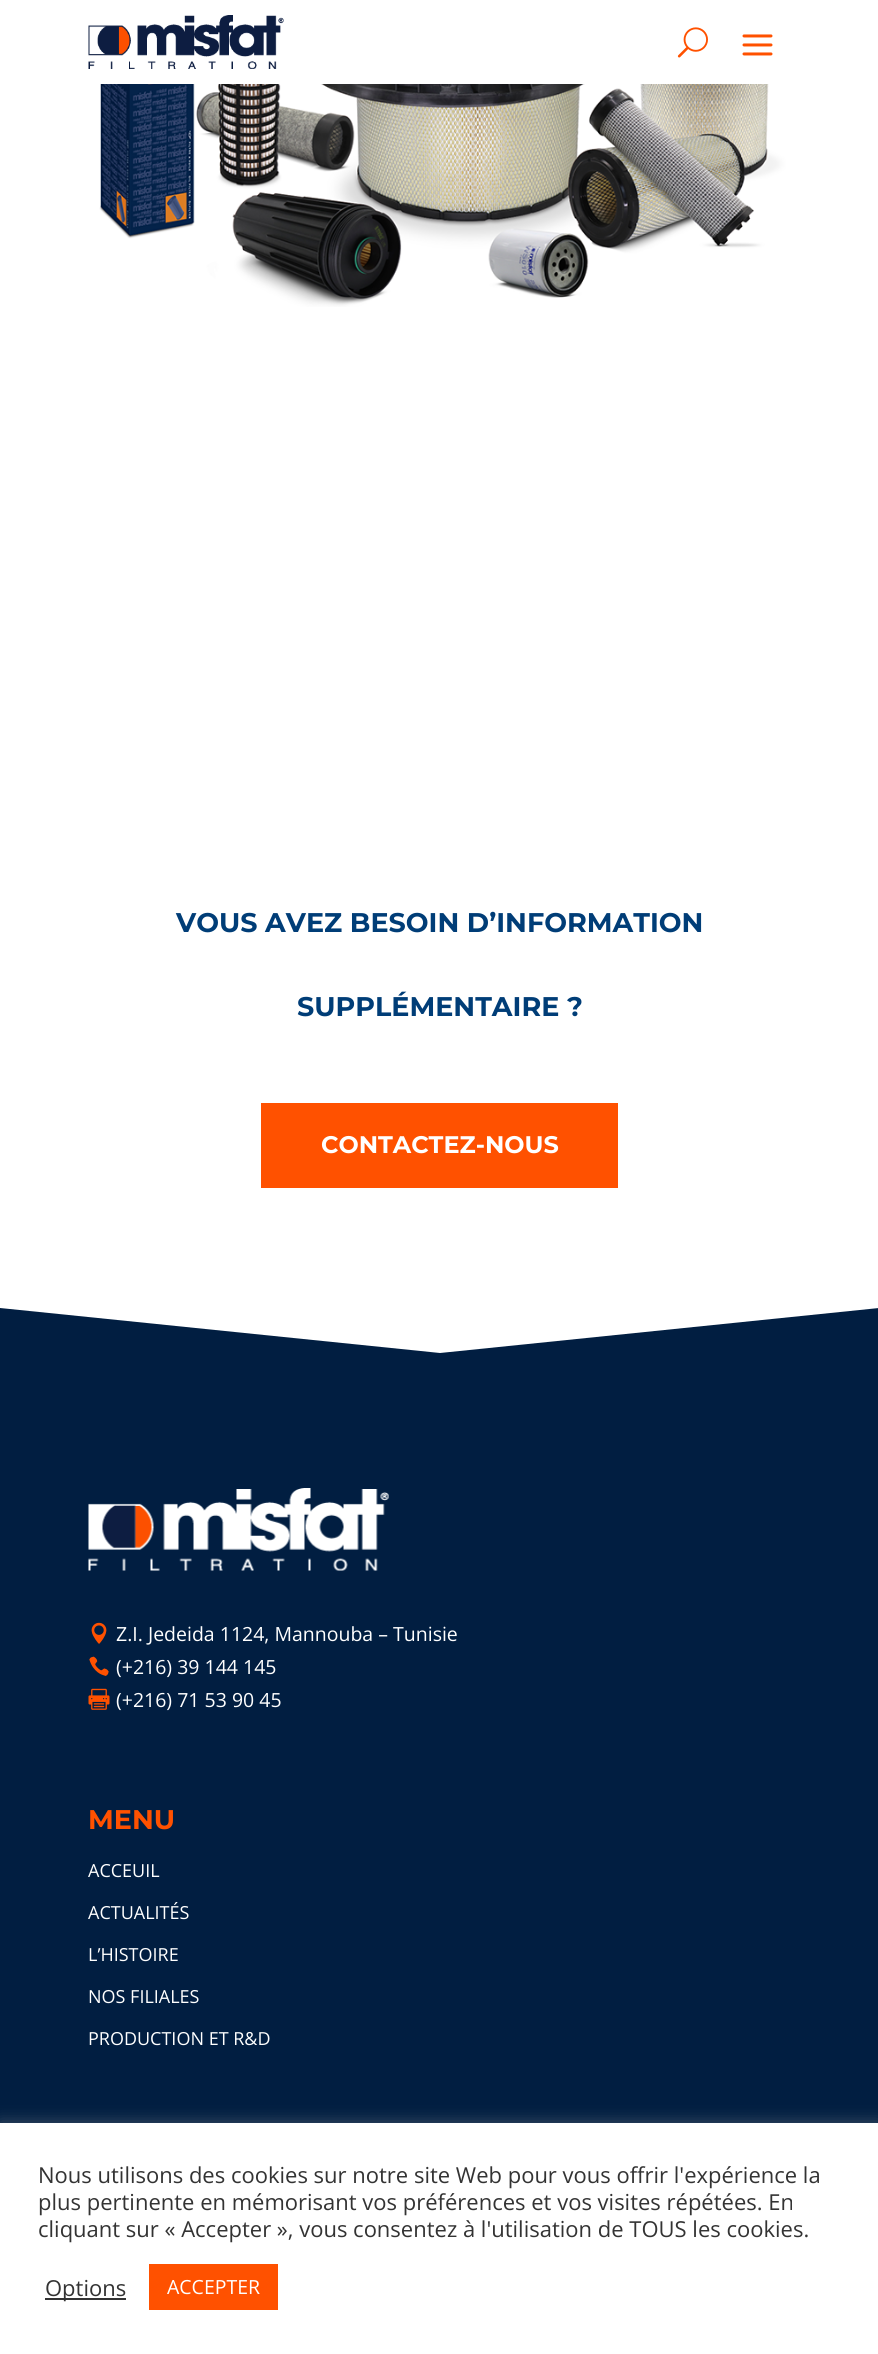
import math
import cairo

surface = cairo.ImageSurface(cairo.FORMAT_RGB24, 878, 2354)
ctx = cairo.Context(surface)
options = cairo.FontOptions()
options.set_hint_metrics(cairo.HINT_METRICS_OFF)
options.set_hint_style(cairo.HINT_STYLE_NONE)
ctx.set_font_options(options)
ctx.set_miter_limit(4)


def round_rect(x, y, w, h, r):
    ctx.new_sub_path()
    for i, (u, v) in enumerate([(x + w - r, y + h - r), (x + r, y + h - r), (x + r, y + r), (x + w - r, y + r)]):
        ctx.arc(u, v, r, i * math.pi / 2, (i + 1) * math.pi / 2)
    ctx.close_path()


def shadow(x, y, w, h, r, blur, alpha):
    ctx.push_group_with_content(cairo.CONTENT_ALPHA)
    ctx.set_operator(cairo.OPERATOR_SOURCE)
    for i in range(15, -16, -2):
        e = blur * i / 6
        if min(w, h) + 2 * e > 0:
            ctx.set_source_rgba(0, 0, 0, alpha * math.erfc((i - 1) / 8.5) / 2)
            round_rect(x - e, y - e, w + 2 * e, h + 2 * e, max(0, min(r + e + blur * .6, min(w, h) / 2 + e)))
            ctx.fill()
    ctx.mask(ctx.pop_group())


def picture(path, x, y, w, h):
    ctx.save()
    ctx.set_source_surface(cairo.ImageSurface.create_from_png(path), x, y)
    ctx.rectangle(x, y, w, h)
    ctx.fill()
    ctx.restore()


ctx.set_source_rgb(1, 1, 1)
ctx.paint()
picture("img1.png", 88, 15, 196, 54)
picture("img2.png", 677, 27, 31, 31)
picture("img3.png", 742, 34, 31, 22)
picture("img4.png", 99, 84, 687, 223)
ctx.select_font_face("Montserrat Thin")
ctx.set_font_size(27)
ctx.set_source_rgb(0, 0.239, 0.467)
ctx.move_to(176, 932)
ctx.show_text("VOUS AVEZ BESOIN D’INFORMATION")
ctx.move_to(297, 1016)
ctx.show_text("SUPPLÉMENTAIRE ?")
ctx.set_source_rgb(1, 0.318, 0)
ctx.rectangle(261, 1103, 357, 85)
ctx.fill()
ctx.set_font_size(24)
ctx.set_source_rgb(1, 1, 1)
ctx.move_to(321, 1153)
ctx.show_text("CONTACTEZ-NOUS")
ctx.set_source_rgb(0.004, 0.118, 0.255)
ctx.rectangle(0, 1308, 878, 815)
ctx.fill()
ctx.set_source_rgb(1, 1, 1)
ctx.new_path()
ctx.move_to(440, 1353)
ctx.line_to(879, 1308)
ctx.line_to(0, 1308)
ctx.close_path()
ctx.fill()
picture("img5.png", 88, 1488, 301, 83)
picture("img6.png", 91, 1622, 16, 22)
ctx.select_font_face("Open Sans")
ctx.set_font_size(19.5)
ctx.move_to(116, 1641)
ctx.show_text("Z.I. Jedeida 1124, Mannouba – Tunisie")
picture("img7.png", 89, 1656, 20, 20)
ctx.move_to(116, 1674)
ctx.show_text("(+216) 39 144 145")
picture("img8.png", 88, 1688, 22, 22)
ctx.move_to(116, 1707)
ctx.show_text("(+216) 71 53 90 45")
ctx.select_font_face("Montserrat Thin")
ctx.set_font_size(27)
ctx.set_source_rgb(1, 0.318, 0)
ctx.move_to(88, 1829)
ctx.show_text("MENU")
ctx.select_font_face("Open Sans")
ctx.set_font_size(18)
ctx.set_source_rgb(1, 1, 1)
ctx.move_to(88, 1877)
ctx.show_text("ACCEUIL")
ctx.move_to(88, 1919)
ctx.show_text("ACTUALITÉS")
ctx.move_to(88, 1961)
ctx.show_text("L’HISTOIRE")
ctx.move_to(88, 2003)
ctx.show_text("NOS FILIALES")
ctx.move_to(88, 2045)
ctx.show_text("PRODUCTION ET R&D")
ctx.set_source_rgb(0.675, 0.671, 0.671)
shadow(0, 2121, 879, 233, 0, 7.5, 0.3)
ctx.set_source_rgb(1, 1, 1)
ctx.rectangle(0, 2123, 878, 231)
ctx.fill()
ctx.set_font_size(22)
ctx.set_source_rgb(0.2, 0.2, 0.2)
ctx.move_to(38, 2183)
ctx.show_text("Nous utilisons des cookies sur notre site Web pour vous offrir l'expérience la")
ctx.move_to(38, 2210)
ctx.show_text("plus pertinente en mémorisant vos préférences et vos visites répétées. En")
ctx.move_to(38, 2237)
ctx.show_text("cliquant sur « Accepter », vous consentez à l'utilisation de TOUS les cookies.")
ctx.rectangle(45, 2298, 81, 2)
ctx.fill()
ctx.move_to(45, 2296)
ctx.show_text("Options")
ctx.set_source_rgb(1, 0.318, 0)
ctx.rectangle(149, 2264, 129, 46)
ctx.fill()
ctx.set_font_size(19.5)
ctx.set_source_rgb(1, 1, 1)
ctx.move_to(167, 2294)
ctx.show_text("ACCEPTER")
surface.write_to_png("page.png")
